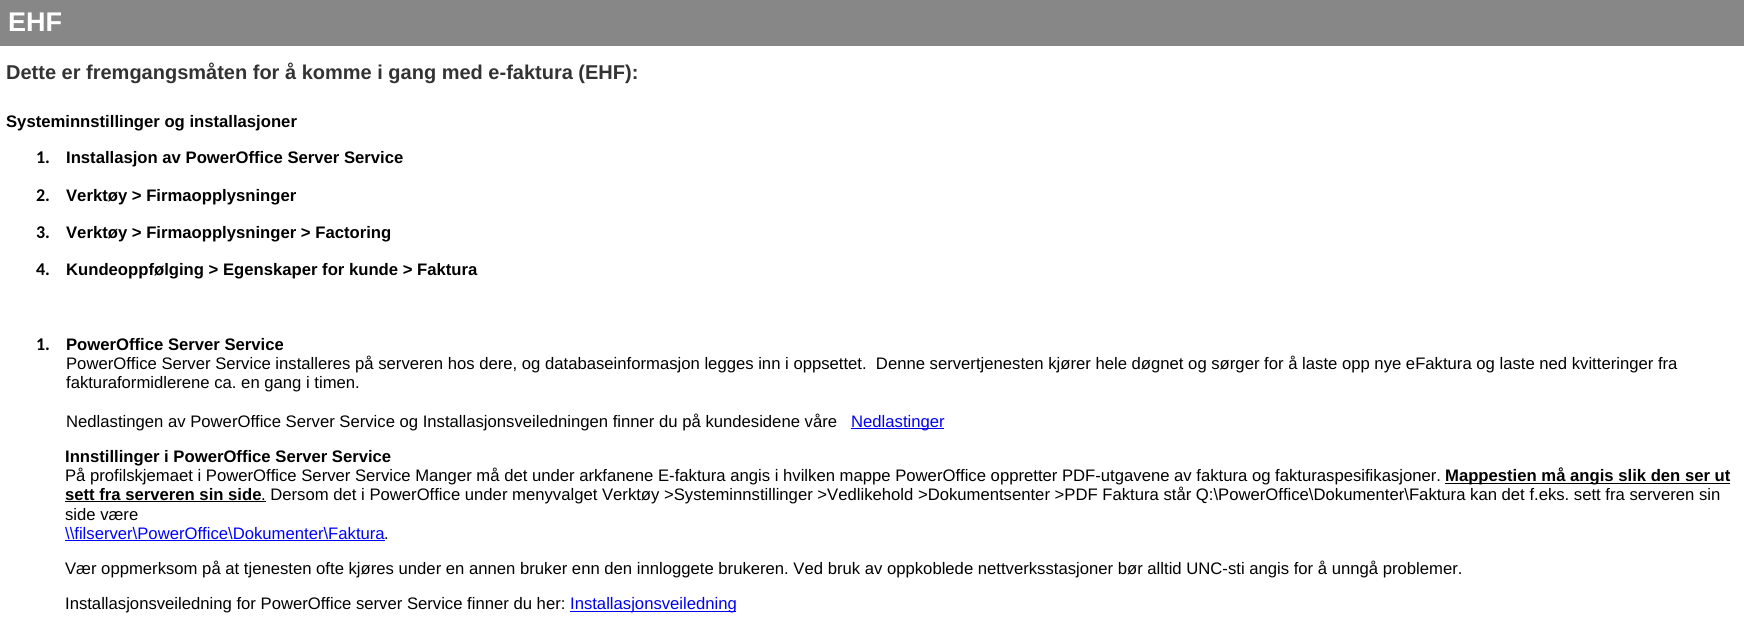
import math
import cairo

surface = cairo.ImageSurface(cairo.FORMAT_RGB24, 1744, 636)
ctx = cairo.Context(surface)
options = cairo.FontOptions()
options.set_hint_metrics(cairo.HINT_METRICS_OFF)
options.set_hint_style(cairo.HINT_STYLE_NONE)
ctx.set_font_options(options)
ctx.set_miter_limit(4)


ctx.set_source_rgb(1, 1, 1)
ctx.paint()
ctx.set_source_rgb(0.529, 0.529, 0.529)
ctx.rectangle(0, 0, 1744, 46)
ctx.fill()
ctx.select_font_face("Liberation Sans", cairo.FONT_SLANT_NORMAL, cairo.FONT_WEIGHT_BOLD)
ctx.set_font_size(27)
ctx.set_source_rgb(1, 1, 1)
ctx.move_to(8, 31)
ctx.show_text("EHF")
ctx.set_font_size(20)
ctx.set_source_rgb(0.2, 0.2, 0.2)
ctx.move_to(6, 79)
ctx.show_text("Dette er fremgangsmåten for å komme i gang med e-faktura (EHF):")
ctx.set_font_size(16.67)
ctx.set_source_rgb(0, 0, 0)
ctx.move_to(6, 127)
ctx.show_text("Systeminnstillinger og installasjoner")
ctx.select_font_face("Carlito", cairo.FONT_SLANT_NORMAL, cairo.FONT_WEIGHT_BOLD)
ctx.set_font_size(18)
ctx.move_to(36, 163)
ctx.show_text("1.")
ctx.select_font_face("Liberation Sans", cairo.FONT_SLANT_NORMAL, cairo.FONT_WEIGHT_BOLD)
ctx.set_font_size(16.67)
ctx.move_to(66, 163)
ctx.show_text("Installasjon av PowerOffice Server Service")
ctx.select_font_face("Carlito", cairo.FONT_SLANT_NORMAL, cairo.FONT_WEIGHT_BOLD)
ctx.set_font_size(18)
ctx.move_to(36, 201)
ctx.show_text("2.")
ctx.select_font_face("Liberation Sans", cairo.FONT_SLANT_NORMAL, cairo.FONT_WEIGHT_BOLD)
ctx.set_font_size(16.67)
ctx.move_to(66, 201)
ctx.show_text("Verktøy > Firmaopplysninger")
ctx.select_font_face("Carlito", cairo.FONT_SLANT_NORMAL, cairo.FONT_WEIGHT_BOLD)
ctx.set_font_size(18)
ctx.move_to(36, 238)
ctx.show_text("3.")
ctx.select_font_face("Liberation Sans", cairo.FONT_SLANT_NORMAL, cairo.FONT_WEIGHT_BOLD)
ctx.set_font_size(16.67)
ctx.move_to(66, 238)
ctx.show_text("Verktøy > Firmaopplysninger > Factoring")
ctx.select_font_face("Carlito", cairo.FONT_SLANT_NORMAL, cairo.FONT_WEIGHT_BOLD)
ctx.set_font_size(18)
ctx.move_to(36, 275)
ctx.show_text("4.")
ctx.select_font_face("Liberation Sans", cairo.FONT_SLANT_NORMAL, cairo.FONT_WEIGHT_BOLD)
ctx.set_font_size(16.67)
ctx.move_to(66, 275)
ctx.show_text("Kundeoppfølging > Egenskaper for kunde > Faktura")
ctx.select_font_face("Carlito", cairo.FONT_SLANT_NORMAL, cairo.FONT_WEIGHT_BOLD)
ctx.set_font_size(18)
ctx.move_to(36, 350)
ctx.show_text("1.")
ctx.select_font_face("Liberation Sans", cairo.FONT_SLANT_NORMAL, cairo.FONT_WEIGHT_BOLD)
ctx.set_font_size(16.67)
ctx.move_to(66, 350)
ctx.show_text("PowerOffice Server Service")
ctx.select_font_face("Liberation Sans")
ctx.move_to(66, 369)
ctx.show_text("PowerOffice Server Service installeres på serveren hos dere, og databaseinformasjon legges inn i oppsettet.  Denne servertjenesten kjører hele døgnet og sørger for å laste opp nye eFaktura og laste ned kvitteringer fra")
ctx.move_to(66, 388)
ctx.show_text("fakturaformidlerene ca. en gang i timen.")
ctx.move_to(66, 427)
ctx.show_text("Nedlastingen av PowerOffice Server Service og Installasjonsveiledningen finner du på kundesidene våre")
ctx.set_source_rgb(0, 0, 0.933)
ctx.rectangle(851, 428, 93, 1)
ctx.fill()
ctx.move_to(851, 427)
ctx.show_text("Nedlastinger")
ctx.select_font_face("Liberation Sans", cairo.FONT_SLANT_NORMAL, cairo.FONT_WEIGHT_BOLD)
ctx.set_source_rgb(0, 0, 0)
ctx.move_to(65, 462)
ctx.show_text("Innstillinger i PowerOffice Server Service")
ctx.select_font_face("Liberation Sans")
ctx.move_to(65, 481)
ctx.show_text("På profilskjemaet i PowerOffice Server Service Manger må det under arkfanene E-faktura angis i hvilken mappe PowerOffice oppretter PDF-utgavene av faktura og fakturaspesifikasjoner.")
ctx.rectangle(1445, 483, 285, 1)
ctx.fill()
ctx.select_font_face("Liberation Sans", cairo.FONT_SLANT_NORMAL, cairo.FONT_WEIGHT_BOLD)
ctx.move_to(1445, 481)
ctx.show_text("Mappestien må angis slik den ser ut")
ctx.move_to(65, 500)
ctx.show_text("sett fra serveren sin side")
ctx.rectangle(65, 501, 201, 1)
ctx.fill()
ctx.select_font_face("Liberation Sans")
ctx.move_to(261, 500)
ctx.show_text(". Dersom det i PowerOffice under menyvalget Verktøy >Systeminnstillinger >Vedlikehold >Dokumentsenter >PDF Faktura står Q:\\PowerOffice\\Dokumenter\\Faktura kan det f.eks. sett fra serveren sin")
ctx.move_to(65, 520)
ctx.show_text("side være")
ctx.set_source_rgb(0, 0, 1)
ctx.move_to(65, 539)
ctx.show_text("\\\\filserver\\PowerOffice\\Dokumenter\\Faktura")
ctx.rectangle(65, 540, 320, 1)
ctx.fill()
ctx.set_source_rgb(0, 0, 0)
ctx.move_to(384, 539)
ctx.show_text(".")
ctx.move_to(65, 574)
ctx.show_text("Vær oppmerksom på at tjenesten ofte kjøres under en annen bruker enn den innloggete brukeren. Ved bruk av oppkoblede nettverksstasjoner bør alltid UNC-sti angis for å unngå problemer.")
ctx.move_to(65, 609)
ctx.show_text("Installasjonsveiledning for PowerOffice server Service finner du her:")
ctx.set_source_rgb(0, 0, 0.933)
ctx.rectangle(570, 611, 166, 1)
ctx.fill()
ctx.move_to(570, 609)
ctx.show_text("Installasjonsveiledning")
surface.write_to_png("page.png")
